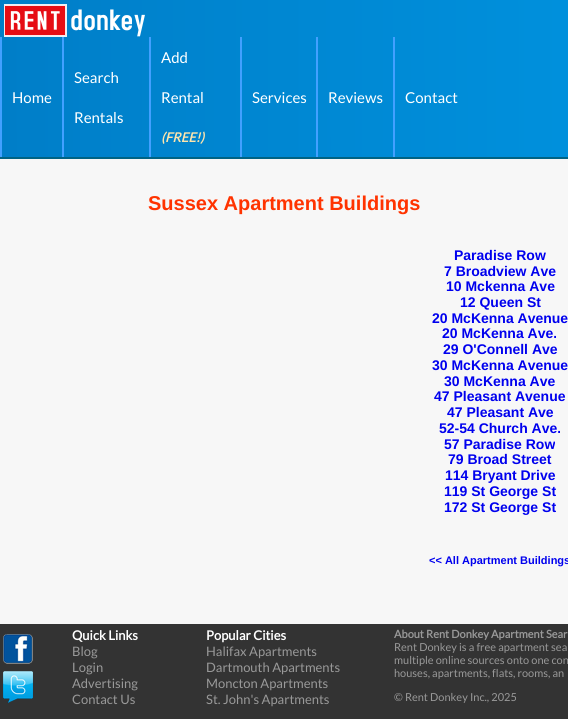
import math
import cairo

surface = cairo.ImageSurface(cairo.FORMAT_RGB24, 568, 719)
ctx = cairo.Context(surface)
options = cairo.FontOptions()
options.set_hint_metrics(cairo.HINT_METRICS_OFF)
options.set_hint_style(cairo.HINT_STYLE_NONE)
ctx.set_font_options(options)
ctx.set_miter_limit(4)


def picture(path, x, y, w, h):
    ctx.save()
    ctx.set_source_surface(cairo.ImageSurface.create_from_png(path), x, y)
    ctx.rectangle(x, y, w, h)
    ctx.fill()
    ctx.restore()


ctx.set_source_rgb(0.965, 0.965, 0.965)
ctx.paint()
gradient = cairo.LinearGradient(0, 79, 568, 78)
gradient.add_color_stop_rgba(0, 0, 0.494, 0.784, 1)
gradient.add_color_stop_rgba(1, 0, 0.565, 0.863, 1)
ctx.set_source(gradient)
ctx.rectangle(0, 0, 568, 157)
ctx.fill()
ctx.set_source_rgb(0, 0.388, 0.518)
ctx.rectangle(0, 157, 568, 2)
ctx.fill()
picture("img1.png", 4, 4, 141, 33)
ctx.set_source_rgb(0.259, 0.627, 1)
ctx.rectangle(0, 37, 2, 120)
ctx.fill()
ctx.select_font_face("Lato")
ctx.set_font_size(15)
ctx.set_source_rgb(1, 1, 1)
ctx.move_to(12, 103)
ctx.show_text("Home")
ctx.set_source_rgb(0.259, 0.627, 1)
ctx.rectangle(62, 37, 2, 120)
ctx.fill()
ctx.set_source_rgb(1, 1, 1)
ctx.move_to(74, 83)
ctx.show_text("Search")
ctx.move_to(74, 123)
ctx.show_text("Rentals")
ctx.set_source_rgb(0.259, 0.627, 1)
ctx.rectangle(149, 37, 2, 120)
ctx.fill()
ctx.set_source_rgb(1, 1, 1)
ctx.move_to(161, 63)
ctx.show_text("Add")
ctx.move_to(161, 103)
ctx.show_text("Rental")
ctx.select_font_face("Lato", cairo.FONT_SLANT_ITALIC, cairo.FONT_WEIGHT_BOLD)
ctx.set_font_size(13)
ctx.set_source_rgb(0.996, 0.898, 0.675)
ctx.move_to(161, 142)
ctx.show_text("(FREE!)")
ctx.set_source_rgb(0.259, 0.627, 1)
ctx.rectangle(240, 37, 2, 120)
ctx.fill()
ctx.select_font_face("Lato")
ctx.set_font_size(15)
ctx.set_source_rgb(1, 1, 1)
ctx.move_to(252, 103)
ctx.show_text("Services")
ctx.set_source_rgb(0.259, 0.627, 1)
ctx.rectangle(316, 37, 2, 120)
ctx.fill()
ctx.set_source_rgb(1, 1, 1)
ctx.move_to(328, 103)
ctx.show_text("Reviews")
ctx.set_source_rgb(0.259, 0.627, 1)
ctx.rectangle(393, 37, 2, 120)
ctx.fill()
ctx.set_source_rgb(1, 1, 1)
ctx.move_to(405, 103)
ctx.show_text("Contact")
ctx.select_font_face("Liberation Sans", cairo.FONT_SLANT_NORMAL, cairo.FONT_WEIGHT_BOLD)
ctx.set_font_size(20)
ctx.set_source_rgb(1, 0.2, 0)
ctx.move_to(148, 210)
ctx.show_text("Sussex Apartment Buildings")
ctx.set_font_size(14)
ctx.set_source_rgb(0, 0, 0.933)
ctx.move_to(454, 260)
ctx.show_text("Paradise Row")
ctx.move_to(444, 276)
ctx.show_text("7 Broadview Ave")
ctx.move_to(446, 291)
ctx.show_text("10 Mckenna Ave")
ctx.move_to(460, 307)
ctx.show_text("12 Queen St")
ctx.move_to(432, 323)
ctx.show_text("20 McKenna Avenue")
ctx.move_to(442, 338)
ctx.show_text("20 McKenna Ave.")
ctx.move_to(443, 354)
ctx.show_text("29 O'Connell Ave")
ctx.move_to(432, 370)
ctx.show_text("30 McKenna Avenue")
ctx.move_to(444, 386)
ctx.show_text("30 McKenna Ave")
ctx.move_to(434, 401)
ctx.show_text("47 Pleasant Avenue")
ctx.move_to(447, 417)
ctx.show_text("47 Pleasant Ave")
ctx.move_to(439, 433)
ctx.show_text("52-54 Church Ave.")
ctx.move_to(444, 449)
ctx.show_text("57 Paradise Row")
ctx.move_to(448, 464)
ctx.show_text("79 Broad Street")
ctx.move_to(445, 480)
ctx.show_text("114 Bryant Drive")
ctx.move_to(444, 496)
ctx.show_text("119 St George St")
ctx.move_to(444, 512)
ctx.show_text("172 St George St")
ctx.set_font_size(11)
ctx.move_to(429, 564)
ctx.show_text("<< All Apartment Buildings")
ctx.set_source_rgb(0.2, 0.2, 0.2)
ctx.rectangle(0, 624, 568, 95)
ctx.fill()
picture("img2.png", 3, 634, 30, 30)
picture("img3.png", 3, 671, 30, 32)
ctx.select_font_face("Lato", cairo.FONT_SLANT_NORMAL, cairo.FONT_WEIGHT_BOLD)
ctx.set_font_size(13)
ctx.set_source_rgb(1, 1, 1)
ctx.move_to(72, 640)
ctx.show_text("Quick Links")
ctx.select_font_face("Lato")
ctx.set_source_rgb(0.6, 0.6, 0.6)
ctx.move_to(72, 656)
ctx.show_text("Blog")
ctx.move_to(72, 672)
ctx.show_text("Login")
ctx.move_to(72, 688)
ctx.show_text("Advertising")
ctx.move_to(72, 704)
ctx.show_text("Contact Us")
ctx.select_font_face("Lato", cairo.FONT_SLANT_NORMAL, cairo.FONT_WEIGHT_BOLD)
ctx.set_source_rgb(1, 1, 1)
ctx.move_to(206, 640)
ctx.show_text("Popular Cities")
ctx.select_font_face("Lato")
ctx.set_source_rgb(0.6, 0.6, 0.6)
ctx.move_to(206, 656)
ctx.show_text("Halifax Apartments")
ctx.move_to(206, 672)
ctx.show_text("Dartmouth Apartments")
ctx.move_to(206, 688)
ctx.show_text("Moncton Apartments")
ctx.move_to(206, 704)
ctx.show_text("St. John's Apartments")
ctx.select_font_face("Lato", cairo.FONT_SLANT_NORMAL, cairo.FONT_WEIGHT_BOLD)
ctx.set_font_size(11)
ctx.move_to(394, 638)
ctx.show_text("About Rent Donkey Apartment Sear")
ctx.select_font_face("Lato")
ctx.move_to(394, 651)
ctx.show_text("Rent Donkey is a free apartment sea")
ctx.move_to(394, 664)
ctx.show_text("multiple online sources onto one con")
ctx.move_to(394, 677)
ctx.show_text("houses, apartments, flats, rooms, an")
ctx.move_to(394, 701)
ctx.show_text("© Rent Donkey Inc., 2025")
surface.write_to_png("page.png")
